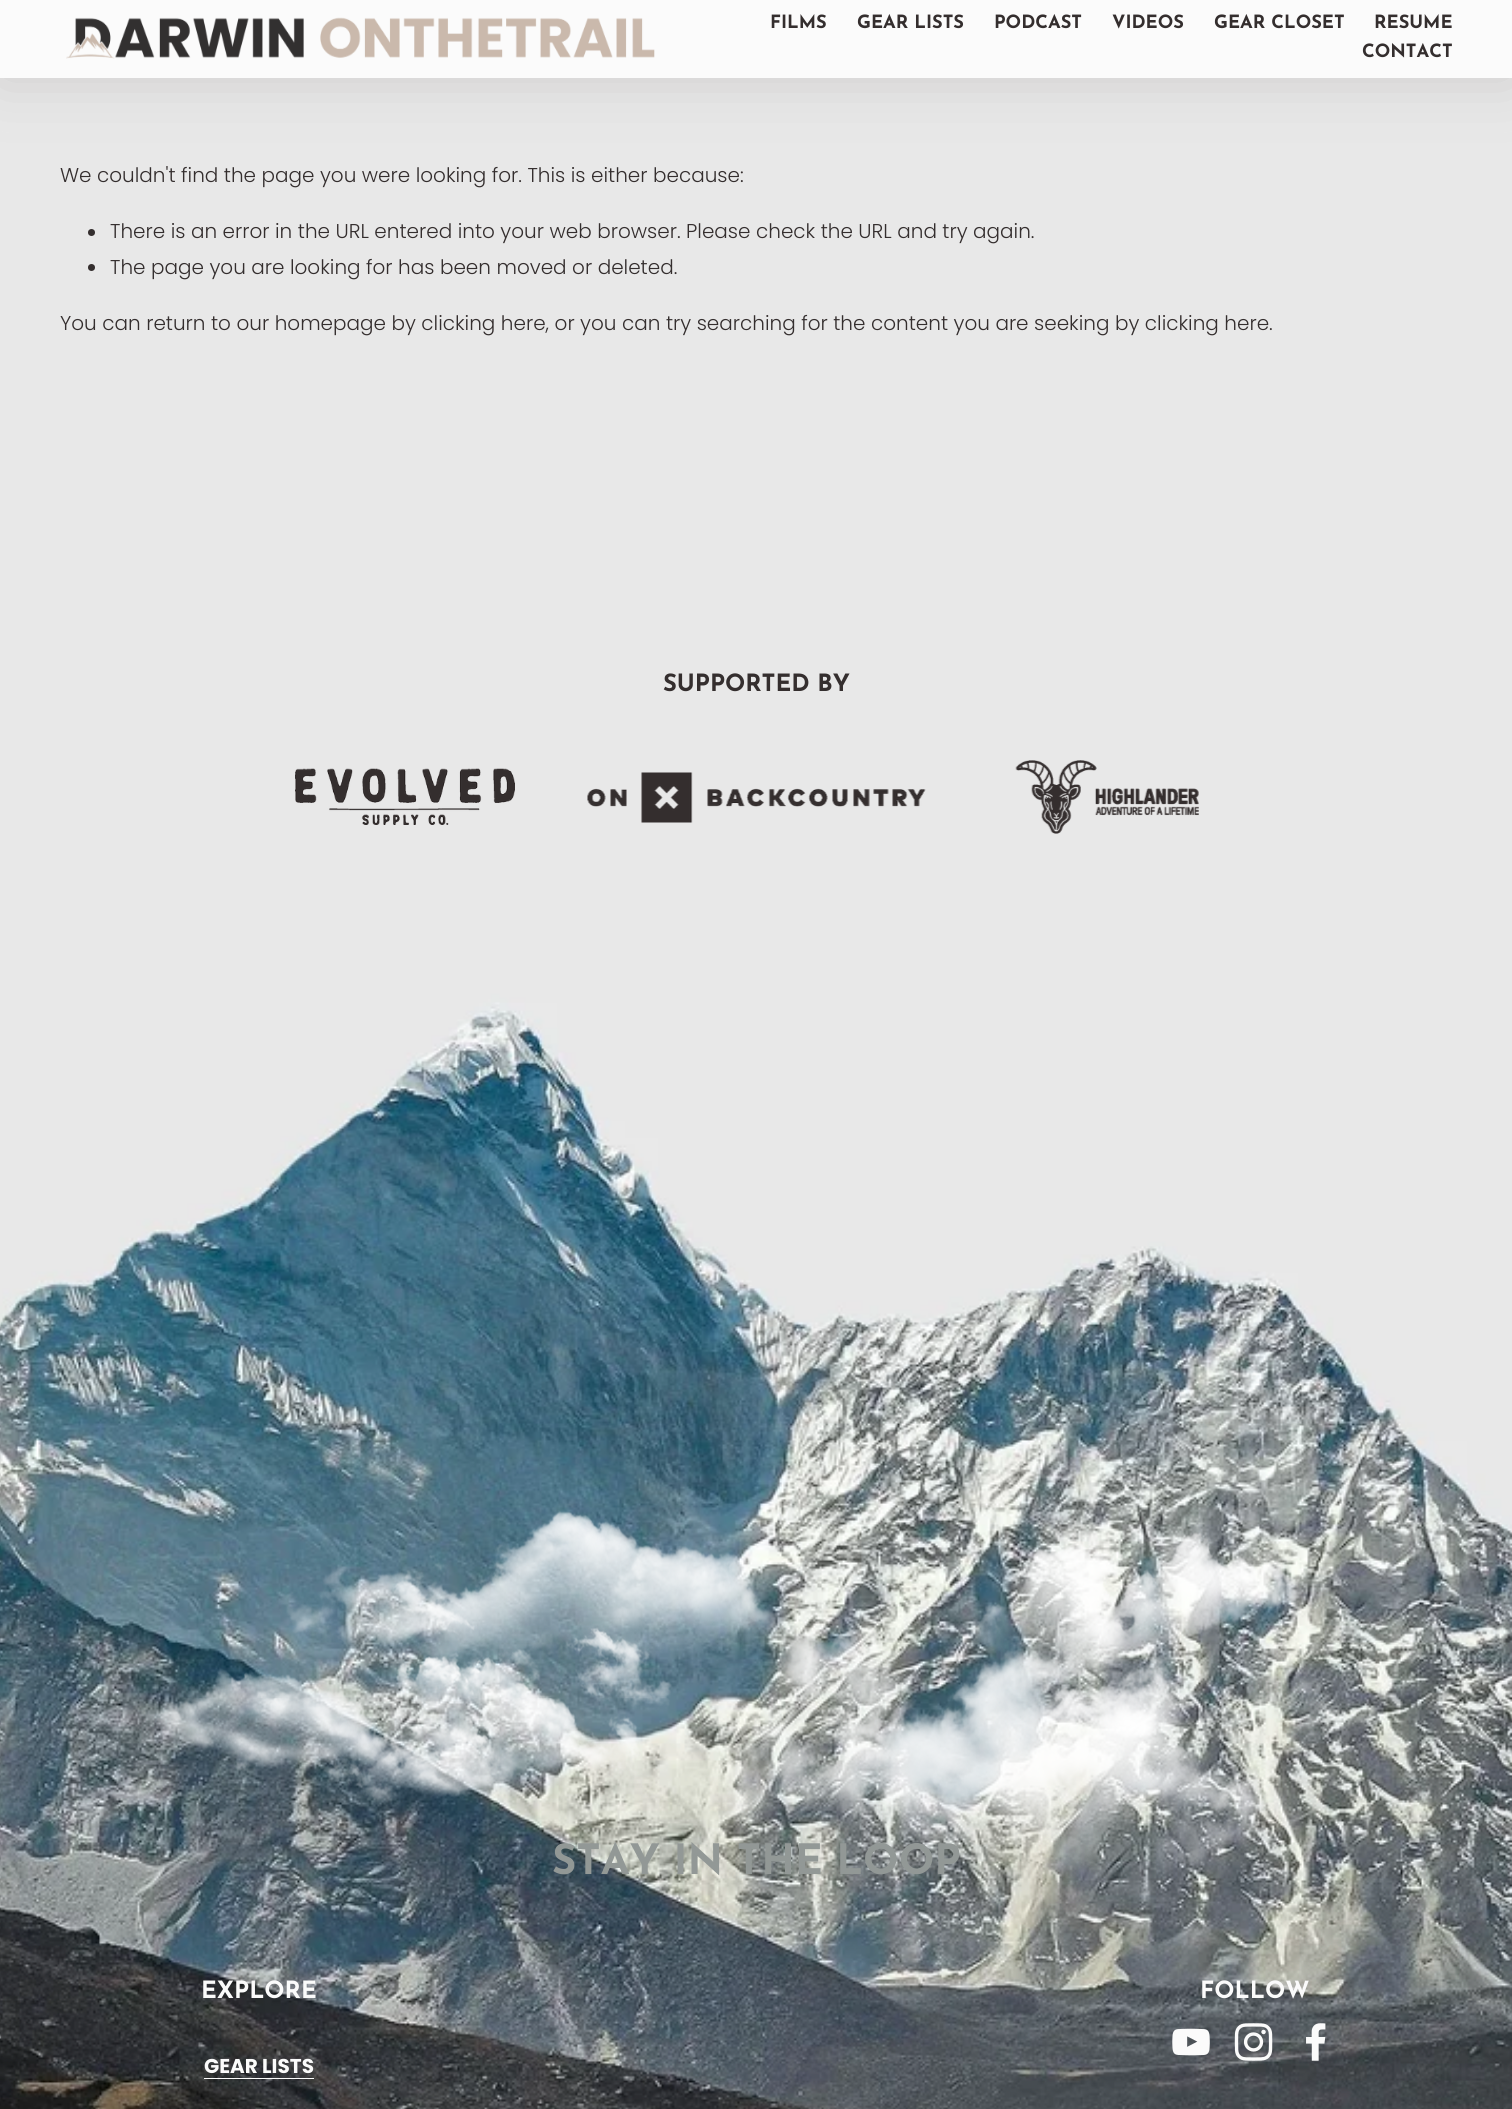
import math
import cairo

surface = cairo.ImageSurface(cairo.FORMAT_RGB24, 1512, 2109)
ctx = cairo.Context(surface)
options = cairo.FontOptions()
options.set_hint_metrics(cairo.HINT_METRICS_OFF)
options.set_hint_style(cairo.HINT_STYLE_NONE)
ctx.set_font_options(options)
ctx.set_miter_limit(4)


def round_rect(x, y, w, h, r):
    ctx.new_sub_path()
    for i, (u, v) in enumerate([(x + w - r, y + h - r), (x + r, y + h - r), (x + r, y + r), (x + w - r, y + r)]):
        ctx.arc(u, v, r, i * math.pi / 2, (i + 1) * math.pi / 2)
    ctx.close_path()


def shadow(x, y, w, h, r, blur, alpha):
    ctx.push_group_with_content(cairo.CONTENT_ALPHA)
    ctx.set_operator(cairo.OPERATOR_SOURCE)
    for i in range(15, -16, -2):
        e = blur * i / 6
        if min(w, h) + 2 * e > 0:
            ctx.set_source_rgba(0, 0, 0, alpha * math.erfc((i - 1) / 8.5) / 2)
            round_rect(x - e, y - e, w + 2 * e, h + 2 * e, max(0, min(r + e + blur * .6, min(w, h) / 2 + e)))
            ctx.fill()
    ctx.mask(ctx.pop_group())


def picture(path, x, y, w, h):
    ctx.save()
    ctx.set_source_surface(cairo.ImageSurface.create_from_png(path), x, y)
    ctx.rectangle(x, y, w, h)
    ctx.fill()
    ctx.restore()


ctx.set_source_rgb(0.91, 0.91, 0.91)
ctx.paint()
ctx.set_source_rgb(0.804, 0.8, 0.8)
shadow(0, 0, 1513, 78, 0, 30, 1)
ctx.set_source_rgb(0.984, 0.984, 0.984)
ctx.rectangle(0, 0, 1512, 78)
ctx.fill()
picture("img1.png", 66, 17, 589, 42)
ctx.select_font_face("Josefin Sans Thin")
ctx.set_font_size(18.25)
ctx.set_source_rgb(0.204, 0.18, 0.18)
ctx.move_to(770, 28)
ctx.show_text("FILMS")
ctx.move_to(857, 28)
ctx.show_text("GEAR LISTS")
ctx.move_to(994, 28)
ctx.show_text("PODCAST")
ctx.move_to(1112, 28)
ctx.show_text("VIDEOS")
ctx.move_to(1214, 28)
ctx.show_text("GEAR CLOSET")
ctx.move_to(1374, 28)
ctx.show_text("RESUME")
ctx.move_to(1362, 57)
ctx.show_text("CONTACT")
ctx.select_font_face("Poppins Light")
ctx.set_font_size(20)
ctx.move_to(60, 182)
ctx.show_text("We couldn't find the page you were looking for. This is either because:")
ctx.new_path()
ctx.arc(91.5, 232.5, 3.5, 0, 2 * math.pi)
ctx.fill()
ctx.move_to(110, 238)
ctx.show_text("There is an error in the URL entered into your web browser. Please check the URL and try again.")
ctx.new_path()
ctx.arc(91.5, 267.5, 3.5, 0, 2 * math.pi)
ctx.fill()
ctx.move_to(110, 274)
ctx.show_text("The page you are looking for has been moved or deleted.")
ctx.move_to(60, 330)
ctx.show_text("You can return to our homepage by clicking here, or you can try searching for the content you are seeking by clicking here.")
ctx.select_font_face("Josefin Sans Thin")
ctx.set_font_size(23.75)
ctx.move_to(663, 691)
ctx.show_text("SUPPORTED BY")
picture("img2.png", 295, 768, 220, 57)
picture("img3.png", 587, 772, 339, 51)
picture("img4.png", 1015, 760, 184, 74)
picture("img5.png", 0, 834, 1512, 1275)
picture("img6.png", 153, 1510, 1196, 373)
ctx.set_font_size(41.75)
ctx.set_source_rgb(0.573, 0.596, 0.588)
ctx.move_to(552, 1874)
ctx.show_text("STAY IN THE LOOP")
ctx.set_font_size(23.75)
ctx.set_source_rgb(0.984, 0.984, 0.984)
ctx.move_to(201, 1998)
ctx.show_text("EXPLORE")
ctx.select_font_face("Poppins", cairo.FONT_SLANT_NORMAL, cairo.FONT_WEIGHT_BOLD)
ctx.set_font_size(20)
ctx.move_to(204, 2073)
ctx.show_text("GEAR LISTS")
ctx.rectangle(204, 2078, 110, 1)
ctx.fill()
ctx.select_font_face("Josefin Sans Thin")
ctx.set_font_size(23.75)
ctx.move_to(1200, 1998)
ctx.show_text("FOLLOW")
picture("img7.png", 1172, 2028, 38, 28)
picture("img8.png", 1234, 2023, 39, 38)
picture("img9.png", 1306, 2023, 20, 38)
surface.write_to_png("page.png")
